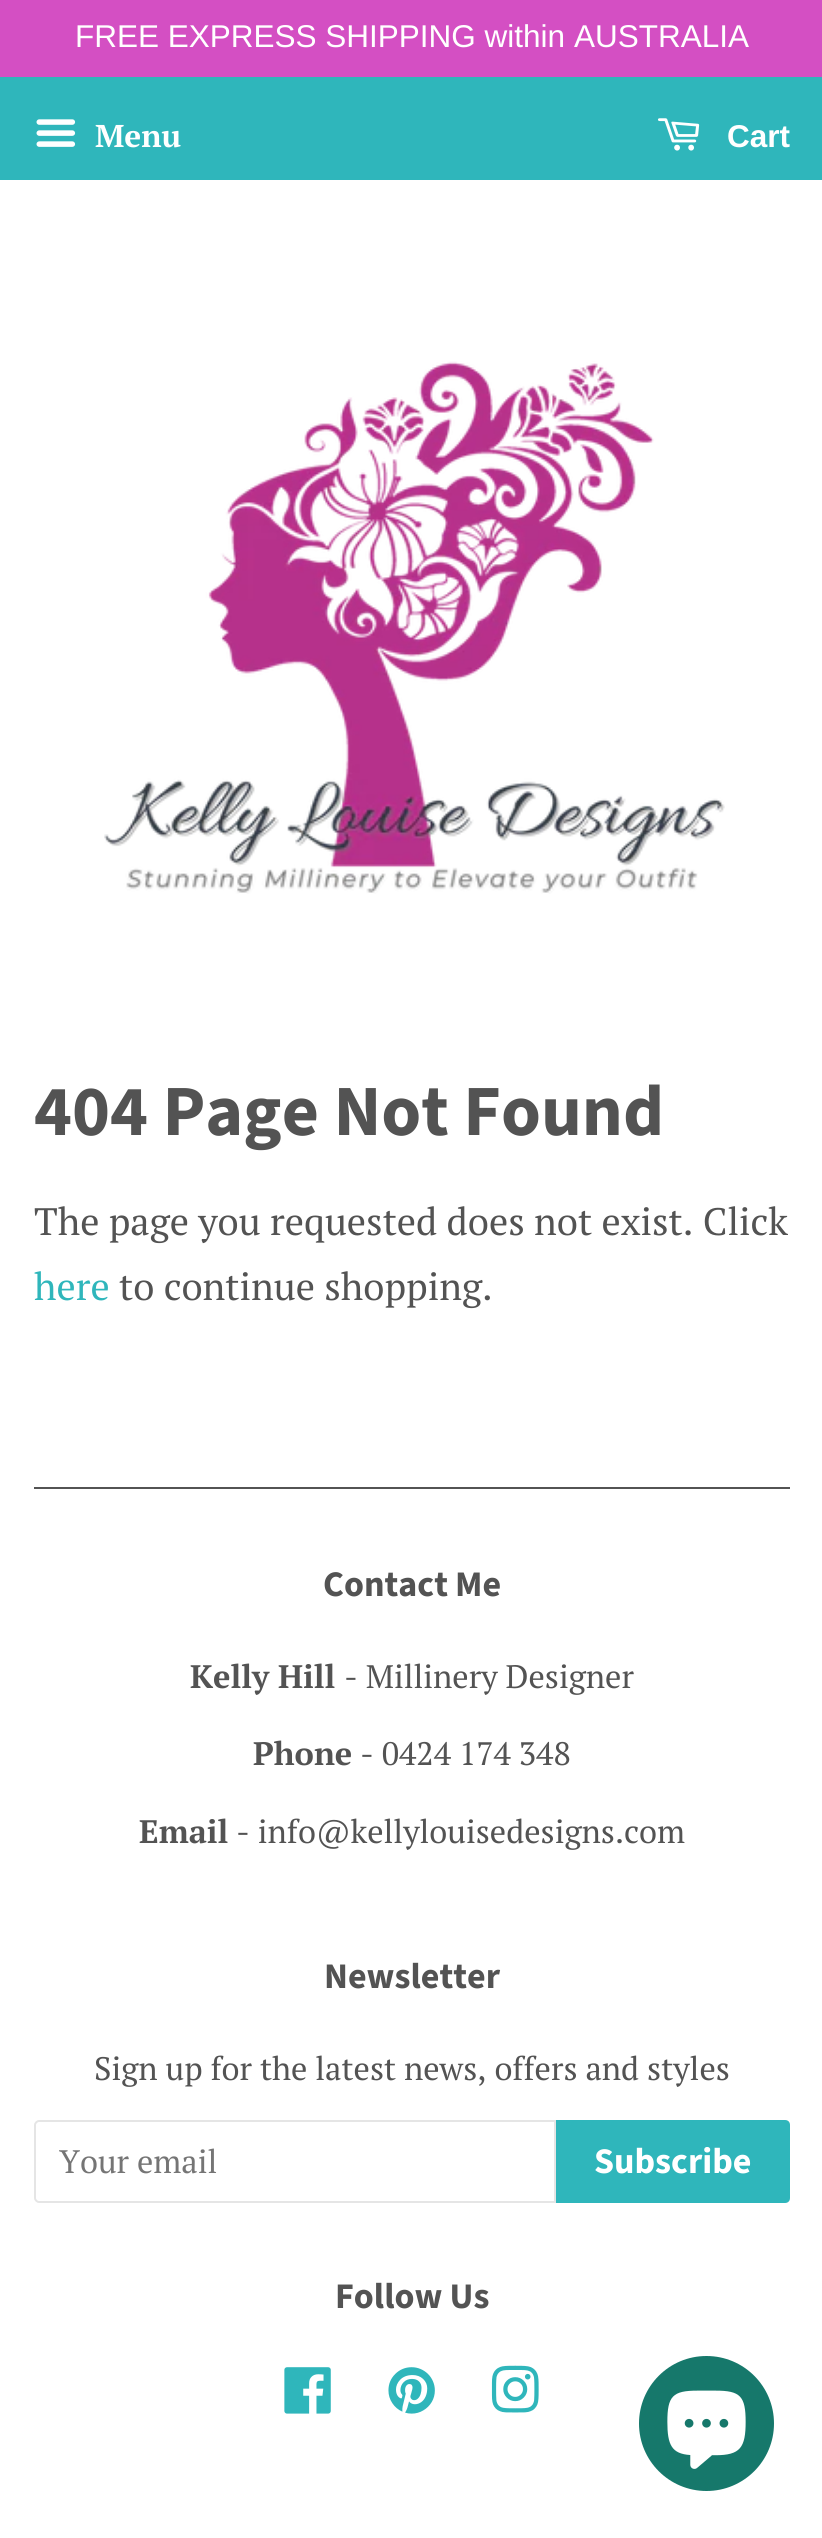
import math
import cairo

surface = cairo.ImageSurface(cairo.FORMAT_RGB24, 822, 2538)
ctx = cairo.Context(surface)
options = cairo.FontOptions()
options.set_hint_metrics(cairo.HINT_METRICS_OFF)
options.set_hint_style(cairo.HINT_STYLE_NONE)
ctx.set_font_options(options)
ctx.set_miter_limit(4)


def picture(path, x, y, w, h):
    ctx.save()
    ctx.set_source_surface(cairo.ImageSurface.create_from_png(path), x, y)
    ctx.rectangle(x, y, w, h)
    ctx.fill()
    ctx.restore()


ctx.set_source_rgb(1, 1, 1)
ctx.paint()
ctx.set_source_rgb(0.831, 0.31, 0.765)
ctx.rectangle(0, 0, 822, 77)
ctx.fill()
ctx.select_font_face("Liberation Sans")
ctx.set_font_size(31.5)
ctx.set_source_rgb(1, 1, 1)
ctx.move_to(75, 47)
ctx.show_text("FREE EXPRESS SHIPPING within AUSTRALIA")
ctx.set_source_rgb(0.184, 0.714, 0.733)
ctx.rectangle(0, 77, 822, 103)
ctx.fill()
picture("img1.png", 36, 119, 40, 28)
ctx.select_font_face("PT Serif", cairo.FONT_SLANT_NORMAL, cairo.FONT_WEIGHT_BOLD)
ctx.set_source_rgb(1, 1, 1)
ctx.move_to(95, 147)
ctx.show_text("Menu")
picture("img2.png", 658, 118, 42, 33)
ctx.select_font_face("Liberation Sans", cairo.FONT_SLANT_NORMAL, cairo.FONT_WEIGHT_BOLD)
ctx.move_to(727, 147)
ctx.show_text("Cart")
picture("img3.png", 104, 361, 621, 533)
ctx.select_font_face("Source Sans Pro", cairo.FONT_SLANT_NORMAL, cairo.FONT_WEIGHT_BOLD)
ctx.set_font_size(72)
ctx.set_source_rgb(0.325, 0.325, 0.325)
ctx.move_to(34, 1135)
ctx.show_text("404 Page Not Found")
ctx.select_font_face("PT Serif")
ctx.set_font_size(38.25)
ctx.move_to(34, 1235)
ctx.show_text("The page you requested does not exist. Click")
ctx.set_source_rgb(0.184, 0.714, 0.733)
ctx.move_to(34, 1300)
ctx.show_text("here")
ctx.set_source_rgb(0.325, 0.325, 0.325)
ctx.move_to(119, 1300)
ctx.show_text("to continue shopping.")
ctx.rectangle(34, 1487, 756, 2)
ctx.fill()
ctx.select_font_face("Source Sans Pro", cairo.FONT_SLANT_NORMAL, cairo.FONT_WEIGHT_BOLD)
ctx.set_font_size(36)
ctx.move_to(323, 1596)
ctx.show_text("Contact Me")
ctx.select_font_face("PT Serif", cairo.FONT_SLANT_NORMAL, cairo.FONT_WEIGHT_BOLD)
ctx.set_font_size(32.5)
ctx.move_to(190, 1688)
ctx.show_text("Kelly Hill")
ctx.select_font_face("PT Serif")
ctx.move_to(344, 1688)
ctx.show_text("- Millinery Designer")
ctx.select_font_face("PT Serif", cairo.FONT_SLANT_NORMAL, cairo.FONT_WEIGHT_BOLD)
ctx.move_to(253, 1765)
ctx.show_text("Phone")
ctx.select_font_face("PT Serif")
ctx.move_to(360, 1765)
ctx.show_text("- 0424 174 348")
ctx.select_font_face("PT Serif", cairo.FONT_SLANT_NORMAL, cairo.FONT_WEIGHT_BOLD)
ctx.move_to(139, 1843)
ctx.show_text("Email")
ctx.select_font_face("PT Serif")
ctx.move_to(236, 1843)
ctx.show_text("- info@kellylouisedesigns.com")
ctx.select_font_face("Source Sans Pro", cairo.FONT_SLANT_NORMAL, cairo.FONT_WEIGHT_BOLD)
ctx.set_font_size(36)
ctx.move_to(324, 1988)
ctx.show_text("Newsletter")
ctx.select_font_face("PT Serif")
ctx.set_font_size(32.5)
ctx.move_to(94, 2080)
ctx.show_text("Sign up for the latest news, offers and styles")
ctx.new_path()
ctx.move_to(39, 2121)
ctx.line_to(555, 2121)
ctx.line_to(555, 2202)
ctx.line_to(39, 2202)
ctx.curve_to(37, 2202, 35, 2200, 35, 2198)
ctx.line_to(35, 2125)
ctx.curve_to(35, 2123, 37, 2121, 39, 2121)
ctx.close_path()
ctx.set_source_rgb(0.898, 0.898, 0.898)
ctx.stroke()
ctx.set_source_rgb(0.459, 0.459, 0.459)
ctx.move_to(59, 2173)
ctx.show_text("Your email")
ctx.set_source_rgb(0.184, 0.714, 0.733)
ctx.new_path()
ctx.move_to(556, 2120)
ctx.line_to(785, 2120)
ctx.curve_to(788, 2120, 790, 2122, 790, 2125)
ctx.line_to(790, 2198)
ctx.curve_to(790, 2201, 788, 2203, 785, 2203)
ctx.line_to(556, 2203)
ctx.close_path()
ctx.fill()
ctx.select_font_face("Source Sans Pro", cairo.FONT_SLANT_NORMAL, cairo.FONT_WEIGHT_BOLD)
ctx.set_font_size(36)
ctx.set_source_rgb(1, 1, 1)
ctx.move_to(594, 2173)
ctx.show_text("Subscribe")
ctx.set_source_rgb(0.325, 0.325, 0.325)
ctx.move_to(335, 2308)
ctx.show_text("Follow Us")
picture("img4.png", 284, 2367, 47, 47)
picture("img5.png", 388, 2367, 47, 47)
picture("img6.png", 491, 2365, 48, 48)
ctx.set_source_rgb(0.086, 0.471, 0.42)
ctx.arc(706.5, 2423.5, 67.5, 0, 2 * math.pi)
ctx.fill()
picture("img7.png", 667, 2390, 79, 79)
surface.write_to_png("page.png")
